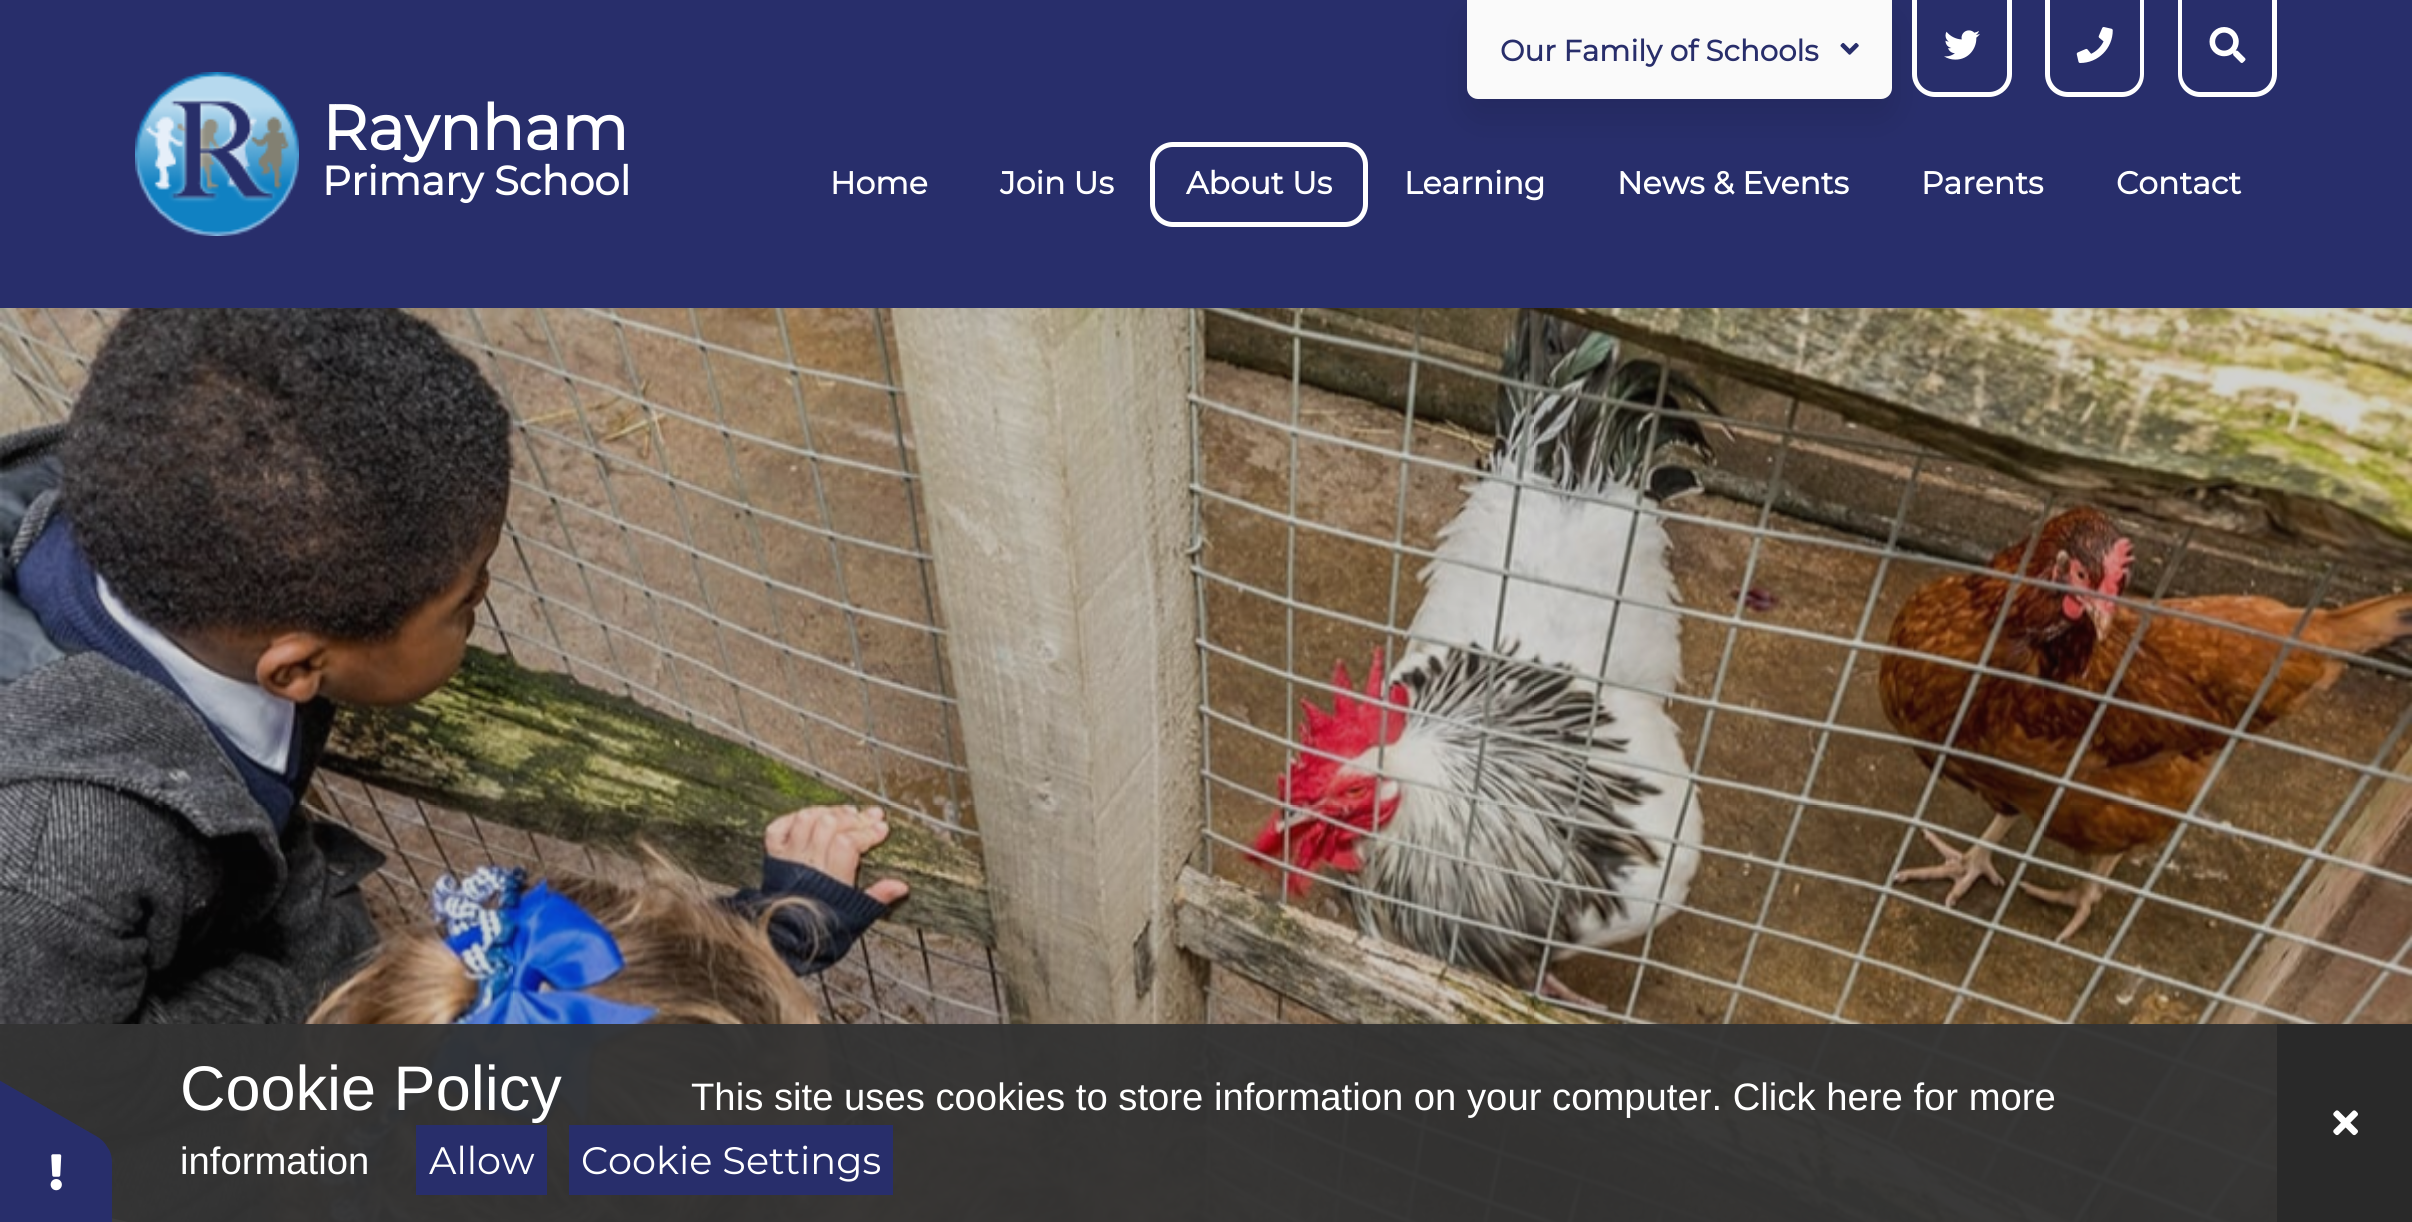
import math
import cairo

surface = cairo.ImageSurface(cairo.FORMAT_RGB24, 2412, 1222)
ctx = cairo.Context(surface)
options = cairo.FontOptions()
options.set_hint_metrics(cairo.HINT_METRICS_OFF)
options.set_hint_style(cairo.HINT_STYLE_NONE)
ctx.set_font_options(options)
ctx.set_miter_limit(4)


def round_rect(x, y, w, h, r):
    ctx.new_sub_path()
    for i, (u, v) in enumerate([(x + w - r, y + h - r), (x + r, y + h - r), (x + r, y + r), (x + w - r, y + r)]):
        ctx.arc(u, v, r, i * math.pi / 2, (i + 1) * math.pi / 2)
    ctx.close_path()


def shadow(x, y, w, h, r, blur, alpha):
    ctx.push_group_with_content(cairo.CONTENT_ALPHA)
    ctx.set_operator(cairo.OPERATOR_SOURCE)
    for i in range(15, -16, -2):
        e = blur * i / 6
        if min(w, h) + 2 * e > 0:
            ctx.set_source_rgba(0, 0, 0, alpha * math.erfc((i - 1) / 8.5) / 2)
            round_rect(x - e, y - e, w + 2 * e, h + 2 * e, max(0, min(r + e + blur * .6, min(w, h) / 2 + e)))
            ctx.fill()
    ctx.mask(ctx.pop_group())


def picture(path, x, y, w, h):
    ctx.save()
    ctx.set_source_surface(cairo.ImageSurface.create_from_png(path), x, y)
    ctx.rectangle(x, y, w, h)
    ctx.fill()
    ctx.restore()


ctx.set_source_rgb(1, 1, 1)
ctx.paint()
ctx.set_source_rgb(0.157, 0.18, 0.42)
ctx.rectangle(0, 0, 2412, 308)
ctx.fill()
ctx.set_source_rgb(1, 1, 1)
ctx.set_fill_rule(cairo.FILL_RULE_EVEN_ODD)
ctx.new_path()
ctx.move_to(1912, -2)
ctx.line_to(2012, -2)
ctx.line_to(2012, 74)
ctx.curve_to(2012, 87, 2001, 97, 1989, 97)
ctx.line_to(1935, 97)
ctx.curve_to(1923, 97, 1912, 87, 1912, 74)
ctx.close_path()
ctx.move_to(1917, -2)
ctx.line_to(2007, -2)
ctx.line_to(2007, 74)
ctx.curve_to(2007, 84, 1999, 92, 1989, 92)
ctx.line_to(1935, 92)
ctx.curve_to(1925, 92, 1917, 84, 1917, 74)
ctx.close_path()
ctx.fill()
picture("img3.png", 1944, 30, 36, 30)
ctx.set_source_rgb(0, 0, 0)
shadow(1467, 18, 425, 99, 11, 18, 0.12)
ctx.set_source_rgb(0.98, 0.98, 0.98)
ctx.new_path()
ctx.move_to(1467, 0)
ctx.line_to(1892, 0)
ctx.line_to(1892, 88)
ctx.curve_to(1892, 94, 1887, 99, 1881, 99)
ctx.line_to(1478, 99)
ctx.curve_to(1472, 99, 1467, 94, 1467, 88)
ctx.close_path()
ctx.fill()
ctx.select_font_face("Montserrat", cairo.FONT_SLANT_NORMAL, cairo.FONT_WEIGHT_BOLD)
ctx.set_font_size(29.25)
ctx.set_source_rgb(0.157, 0.18, 0.42)
ctx.move_to(1500, 61)
ctx.show_text("Our Family of Schools")
picture("img1.png", 1840, 42, 19, 13)
picture("img2.png", 135, 72, 164, 164)
ctx.set_font_size(63)
ctx.set_source_rgb(1, 1, 1)
ctx.move_to(322, 150)
ctx.show_text("Raynham")
ctx.set_font_size(40.5)
ctx.move_to(322, 195)
ctx.show_text("Primary School")
ctx.new_path()
ctx.move_to(2045, -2)
ctx.line_to(2144, -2)
ctx.line_to(2144, 74)
ctx.curve_to(2144, 87, 2134, 97, 2122, 97)
ctx.line_to(2068, 97)
ctx.curve_to(2055, 97, 2045, 87, 2045, 74)
ctx.close_path()
ctx.move_to(2050, -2)
ctx.line_to(2140, -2)
ctx.line_to(2140, 74)
ctx.curve_to(2140, 84, 2132, 92, 2122, 92)
ctx.line_to(2068, 92)
ctx.curve_to(2058, 92, 2050, 84, 2050, 74)
ctx.close_path()
ctx.fill()
picture("img4.png", 2076, 27, 37, 36)
ctx.new_path()
ctx.move_to(2178, -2)
ctx.line_to(2277, -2)
ctx.line_to(2277, 74)
ctx.curve_to(2277, 87, 2267, 97, 2254, 97)
ctx.line_to(2200, 97)
ctx.curve_to(2188, 97, 2178, 87, 2178, 74)
ctx.close_path()
ctx.move_to(2182, -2)
ctx.line_to(2272, -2)
ctx.line_to(2272, 74)
ctx.curve_to(2272, 84, 2264, 92, 2254, 92)
ctx.line_to(2200, 92)
ctx.curve_to(2191, 92, 2182, 84, 2182, 74)
ctx.close_path()
ctx.fill()
picture("img5.png", 2209, 27, 37, 36)
ctx.set_font_size(31.5)
ctx.move_to(830, 194)
ctx.show_text("Home")
ctx.move_to(1000, 194)
ctx.show_text("Join Us")
round_rect(1152.5, 144.5, 213, 80, 20.5)
ctx.set_line_width(5)
ctx.stroke()
ctx.move_to(1186, 194)
ctx.show_text("About Us")
ctx.move_to(1404, 194)
ctx.show_text("Learning")
ctx.move_to(1617, 194)
ctx.show_text("News & Events")
ctx.move_to(1921, 194)
ctx.show_text("Parents")
ctx.move_to(2116, 194)
ctx.show_text("Contact")
picture("img6.png", 0, 308, 2412, 914)
ctx.set_source_rgb(0.98, 0.98, 0.98)
ctx.set_fill_rule(cairo.FILL_RULE_WINDING)
ctx.new_path()
ctx.move_to(2412, 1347)
ctx.line_to(0, 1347)
ctx.line_to(0, 1192)
ctx.curve_to(352, 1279, 757, 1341, 1207, 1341)
ctx.curve_to(1655, 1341, 2060, 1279, 2412, 1192)
ctx.close_path()
ctx.fill()
ctx.set_source_rgba(0.2, 0.2, 0.2, 0.95)
ctx.rectangle(0, 1024, 2277, 198)
ctx.fill()
ctx.set_source_rgb(0.157, 0.18, 0.42)
ctx.new_path()
ctx.move_to(112, 1163)
ctx.line_to(112, 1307)
ctx.curve_to(112, 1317, 108, 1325, 103, 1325)
ctx.line_to(-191, 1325)
ctx.curve_to(-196, 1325, -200, 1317, -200, 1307)
ctx.line_to(-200, 1163)
ctx.curve_to(-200, 1153, -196, 1145, -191, 1145)
ctx.line_to(103, 1145)
ctx.curve_to(108, 1145, 112, 1153, 112, 1163)
ctx.close_path()
ctx.fill()
ctx.new_path()
ctx.move_to(-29, 1064)
ctx.line_to(96, 1136)
ctx.curve_to(105, 1141, 110, 1149, 107, 1153)
ctx.line_to(-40, 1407)
ctx.curve_to(-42, 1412, -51, 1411, -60, 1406)
ctx.line_to(-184, 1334)
ctx.curve_to(-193, 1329, -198, 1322, -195, 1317)
ctx.line_to(-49, 1063)
ctx.curve_to(-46, 1059, -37, 1059, -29, 1064)
ctx.close_path()
ctx.fill()
picture("img7.png", 50, 1154, 12, 37)
ctx.select_font_face("Liberation Sans")
ctx.set_font_size(63)
ctx.set_source_rgb(1, 1, 1)
ctx.move_to(180, 1110)
ctx.show_text("Cookie Policy")
ctx.set_font_size(38.25)
ctx.move_to(691, 1110)
ctx.show_text("This site uses cookies to store information on your computer. Click here for more")
ctx.move_to(180, 1174)
ctx.show_text("information")
ctx.set_source_rgb(0.157, 0.18, 0.42)
ctx.rectangle(416, 1125, 131, 70)
ctx.fill()
ctx.select_font_face("Montserrat Thin")
ctx.set_source_rgb(1, 1, 1)
ctx.move_to(429, 1174)
ctx.show_text("Allow")
ctx.set_source_rgb(0.157, 0.18, 0.42)
ctx.rectangle(569, 1125, 324, 70)
ctx.fill()
ctx.set_source_rgb(1, 1, 1)
ctx.move_to(581, 1174)
ctx.show_text("Cookie Settings")
ctx.set_source_rgb(0.161, 0.161, 0.161)
ctx.rectangle(2277, 1024, 135, 198)
ctx.fill()
picture("img8.png", 2333, 1110, 25, 26)
surface.write_to_png("page.png")
